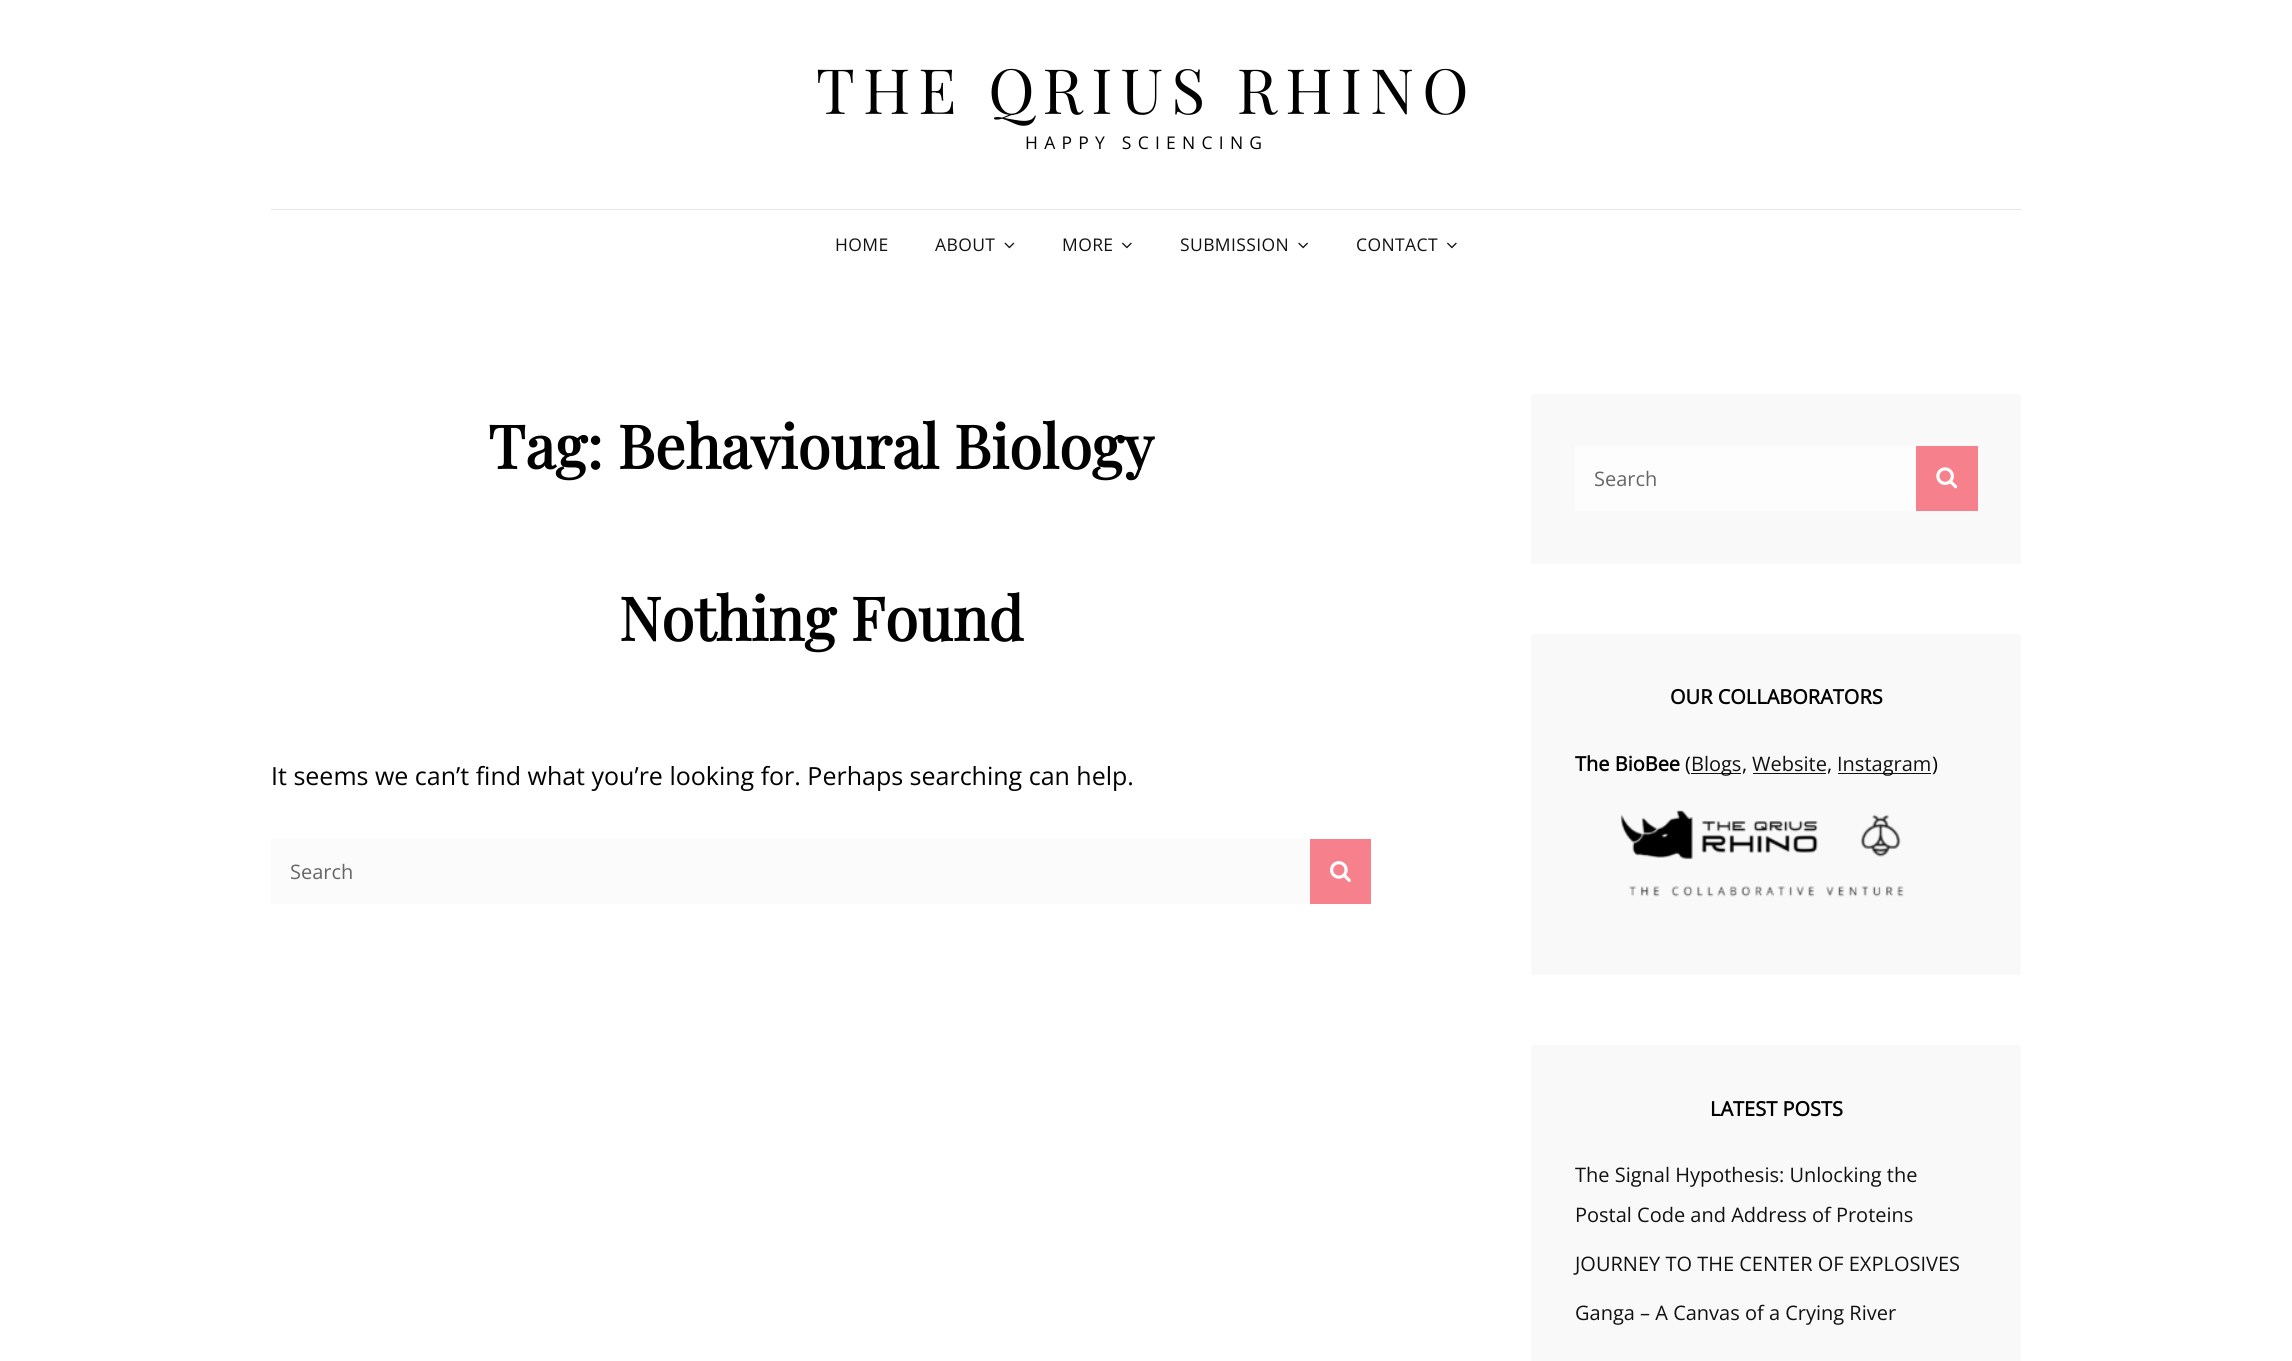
import math
import cairo

surface = cairo.ImageSurface(cairo.FORMAT_RGB24, 2292, 1361)
ctx = cairo.Context(surface)
options = cairo.FontOptions()
options.set_hint_metrics(cairo.HINT_METRICS_OFF)
options.set_hint_style(cairo.HINT_STYLE_NONE)
ctx.set_font_options(options)
ctx.set_miter_limit(4)


def spaced_text(x, y, s, letter, word):
    ctx.move_to(x, y)
    for ch in s:
        ctx.show_text(ch)
        ctx.rel_move_to(letter + word * (ch == ' '), 0)


def picture(path, x, y, w, h):
    ctx.save()
    ctx.set_source_surface(cairo.ImageSurface.create_from_png(path), x, y)
    ctx.rectangle(x, y, w, h)
    ctx.fill()
    ctx.restore()


ctx.set_source_rgb(1, 1, 1)
ctx.paint()
ctx.select_font_face("Playfair Display")
ctx.set_font_size(62.5)
ctx.set_source_rgb(0, 0, 0)
spaced_text(816, 114, "THE QRIUS RHINO", 8.1, 0)
ctx.select_font_face("Open Sans")
ctx.set_font_size(17.5)
spaced_text(1025, 149, "HAPPY SCIENCING", 6.25, 0)
ctx.set_source_rgb(0.902, 0.902, 0.902)
ctx.rectangle(271, 209, 1750, 1)
ctx.fill()
ctx.set_source_rgb(0.067, 0.067, 0.067)
spaced_text(835, 251, "HOME", 0.4, 0)
spaced_text(935, 251, "ABOUT", 0.4, 0)
picture("img1.png", 1004, 242, 11, 7)
spaced_text(1062, 251, "MORE", 0.4, 0)
picture("img2.png", 1122, 242, 10, 7)
spaced_text(1180, 251, "SUBMISSION", 0.4, 0)
picture("img3.png", 1298, 242, 10, 7)
spaced_text(1356, 251, "CONTACT", 0.4, 0)
picture("img2.png", 1447, 242, 10, 7)
ctx.select_font_face("Playfair Display", cairo.FONT_SLANT_NORMAL, cairo.FONT_WEIGHT_BOLD)
ctx.set_font_size(60)
ctx.set_source_rgb(0, 0, 0)
ctx.move_to(488, 469)
ctx.show_text("Tag: Behavioural Biology")
ctx.move_to(619, 641)
ctx.show_text("Nothing Found")
ctx.select_font_face("Open Sans")
ctx.set_font_size(25)
ctx.move_to(271, 785)
ctx.show_text("It seems we can’t find what you’re looking for. Perhaps searching can help.")
ctx.set_source_rgb(0.984, 0.984, 0.984)
ctx.rectangle(271, 839, 1039, 65)
ctx.fill()
ctx.set_font_size(20)
ctx.set_source_rgb(0.4, 0.4, 0.4)
ctx.move_to(290, 879)
ctx.show_text("Search")
ctx.set_source_rgb(0.961, 0.502, 0.549)
ctx.rectangle(1310, 839, 61, 65)
ctx.fill()
picture("img4.png", 1330, 861, 21, 21)
ctx.set_source_rgb(0.976, 0.976, 0.976)
ctx.rectangle(1531, 394, 490, 170)
ctx.fill()
ctx.set_source_rgb(0.992, 0.992, 0.992)
ctx.rectangle(1575, 446, 341, 65)
ctx.fill()
ctx.set_source_rgb(0.4, 0.4, 0.4)
ctx.move_to(1594, 486)
ctx.show_text("Search")
ctx.set_source_rgb(0.961, 0.502, 0.549)
ctx.rectangle(1916, 446, 62, 65)
ctx.fill()
picture("img5.png", 1936, 467, 22, 22)
ctx.set_source_rgb(0.976, 0.976, 0.976)
ctx.rectangle(1531, 634, 490, 341)
ctx.fill()
ctx.select_font_face("Open Sans", cairo.FONT_SLANT_NORMAL, cairo.FONT_WEIGHT_BOLD)
ctx.set_source_rgb(0, 0, 0)
ctx.move_to(1670, 704)
ctx.show_text("OUR COLLABORATORS")
ctx.move_to(1575, 771)
ctx.show_text("The BioBee")
ctx.select_font_face("Open Sans")
ctx.move_to(1685, 771)
ctx.show_text("(")
ctx.set_source_rgb(0.067, 0.067, 0.067)
ctx.rectangle(1691, 773, 50, 1)
ctx.fill()
ctx.move_to(1691, 771)
ctx.show_text("Blogs")
ctx.set_source_rgb(0, 0, 0)
ctx.move_to(1742, 771)
ctx.show_text(",")
ctx.set_source_rgb(0.067, 0.067, 0.067)
ctx.move_to(1752, 771)
ctx.show_text("Website")
ctx.rectangle(1753, 773, 73, 1)
ctx.fill()
ctx.set_source_rgb(0, 0, 0)
ctx.move_to(1827, 771)
ctx.show_text(",")
ctx.set_source_rgb(0.067, 0.067, 0.067)
ctx.rectangle(1838, 773, 93, 1)
ctx.fill()
ctx.move_to(1837, 771)
ctx.show_text("Instagram")
ctx.set_source_rgb(0, 0, 0)
ctx.move_to(1932, 771)
ctx.show_text(")")
picture("img6.png", 1620, 810, 284, 87)
ctx.set_source_rgb(0.976, 0.976, 0.976)
ctx.rectangle(1531, 1045, 490, 316)
ctx.fill()
ctx.select_font_face("Open Sans", cairo.FONT_SLANT_NORMAL, cairo.FONT_WEIGHT_BOLD)
ctx.set_source_rgb(0, 0, 0)
ctx.move_to(1710, 1116)
ctx.show_text("LATEST POSTS")
ctx.select_font_face("Open Sans")
ctx.set_source_rgb(0.067, 0.067, 0.067)
ctx.move_to(1575, 1182)
ctx.show_text("The Signal Hypothesis: Unlocking the")
ctx.move_to(1575, 1222)
ctx.show_text("Postal Code and Address of Proteins")
ctx.move_to(1575, 1271)
ctx.show_text("JOURNEY TO THE CENTER OF EXPLOSIVES")
ctx.move_to(1575, 1320)
ctx.show_text("Ganga – A Canvas of a Crying River")
surface.write_to_png("page.png")
